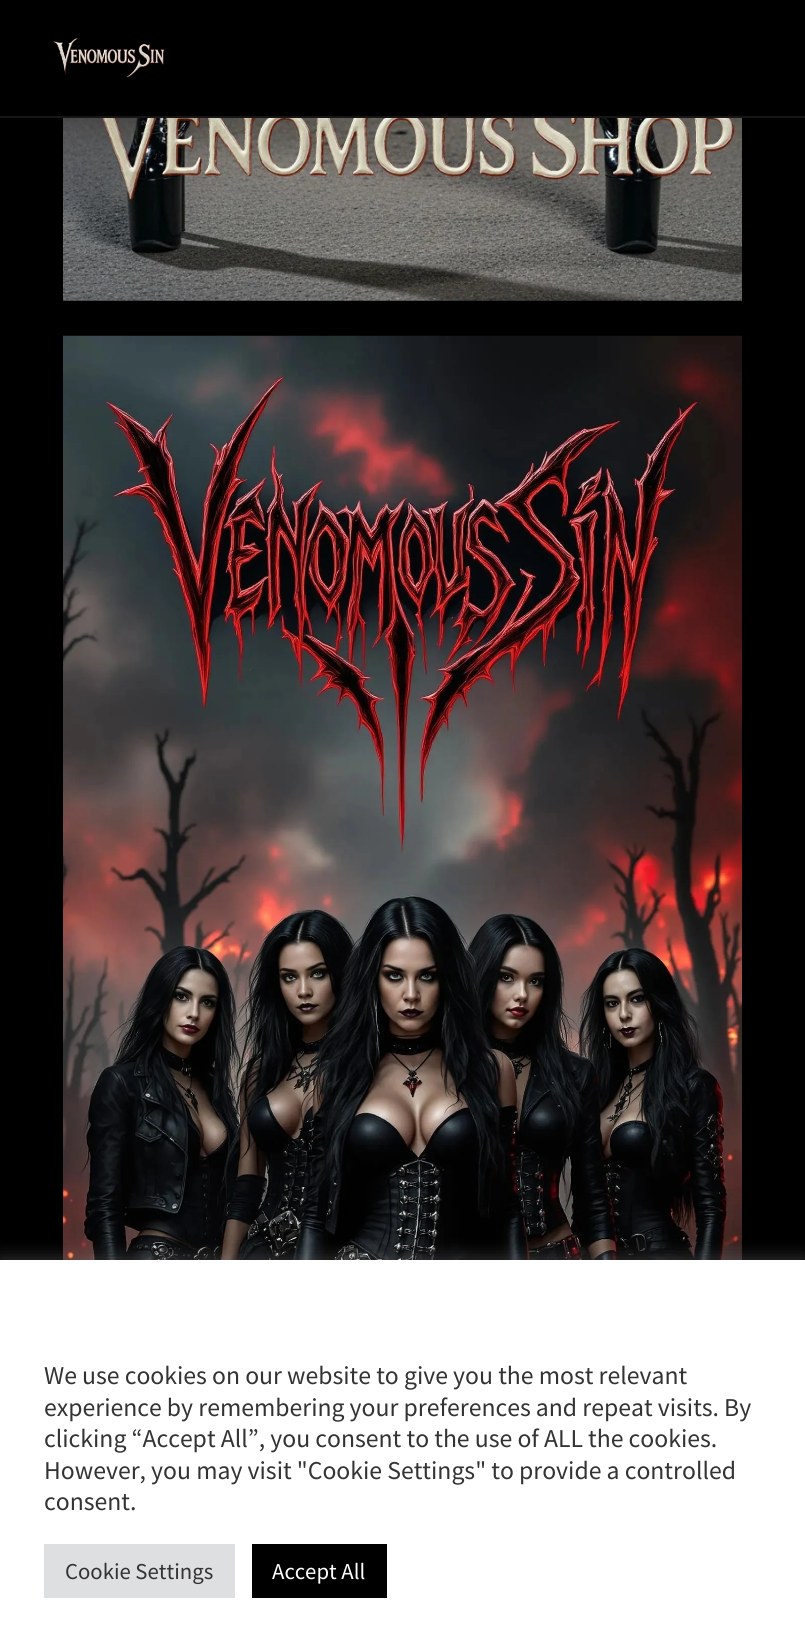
import math
import cairo

surface = cairo.ImageSurface(cairo.FORMAT_RGB24, 805, 1650)
ctx = cairo.Context(surface)
options = cairo.FontOptions()
options.set_hint_metrics(cairo.HINT_METRICS_OFF)
options.set_hint_style(cairo.HINT_STYLE_NONE)
ctx.set_font_options(options)
ctx.set_miter_limit(4)


def round_rect(x, y, w, h, r):
    ctx.new_sub_path()
    for i, (u, v) in enumerate([(x + w - r, y + h - r), (x + r, y + h - r), (x + r, y + r), (x + w - r, y + r)]):
        ctx.arc(u, v, r, i * math.pi / 2, (i + 1) * math.pi / 2)
    ctx.close_path()


def shadow(x, y, w, h, r, blur, alpha):
    ctx.push_group_with_content(cairo.CONTENT_ALPHA)
    ctx.set_operator(cairo.OPERATOR_SOURCE)
    for i in range(15, -16, -2):
        e = blur * i / 6
        if min(w, h) + 2 * e > 0:
            ctx.set_source_rgba(0, 0, 0, alpha * math.erfc((i - 1) / 8.5) / 2)
            round_rect(x - e, y - e, w + 2 * e, h + 2 * e, max(0, min(r + e + blur * .6, min(w, h) / 2 + e)))
            ctx.fill()
    ctx.mask(ctx.pop_group())


def picture(path, x, y, w, h):
    ctx.save()
    ctx.set_source_surface(cairo.ImageSurface.create_from_png(path), x, y)
    ctx.rectangle(x, y, w, h)
    ctx.fill()
    ctx.restore()


ctx.set_source_rgb(0, 0, 0)
ctx.paint()
ctx.set_source_rgb(0.086, 0.086, 0.086)
ctx.rectangle(0, 116, 805, 2)
ctx.fill()
picture("img1.png", 53, 37, 112, 41)
picture("img2.png", 63, 118, 679, 183)
picture("img3.png", 63, 335, 679, 925)
ctx.set_source_rgb(0.675, 0.671, 0.671)
shadow(0, 1258, 805, 391, 0, 9, 0.3)
ctx.set_source_rgb(1, 1, 1)
ctx.rectangle(0, 1260, 805, 390)
ctx.fill()
ctx.select_font_face("Source Sans Pro")
ctx.set_font_size(25.7)
ctx.set_source_rgb(0.2, 0.2, 0.2)
ctx.move_to(44, 1384)
ctx.show_text("We use cookies on our website to give you the most relevant")
ctx.move_to(44, 1416)
ctx.show_text("experience by remembering your preferences and repeat visits. By")
ctx.move_to(44, 1447)
ctx.show_text("clicking “Accept All”, you consent to the use of ALL the cookies.")
ctx.move_to(44, 1479)
ctx.show_text("However, you may visit \"Cookie Settings\" to provide a controlled")
ctx.move_to(44, 1510)
ctx.show_text("consent.")
ctx.set_source_rgb(0.871, 0.875, 0.878)
ctx.rectangle(44, 1544, 191, 54)
ctx.fill()
ctx.set_font_size(22.75)
ctx.set_source_rgb(0.2, 0.2, 0.2)
ctx.move_to(65, 1579)
ctx.show_text("Cookie Settings")
ctx.set_source_rgb(0, 0, 0)
ctx.rectangle(252, 1544, 135, 54)
ctx.fill()
ctx.set_source_rgb(1, 1, 1)
ctx.move_to(272, 1579)
ctx.show_text("Accept All")
surface.write_to_png("page.png")
